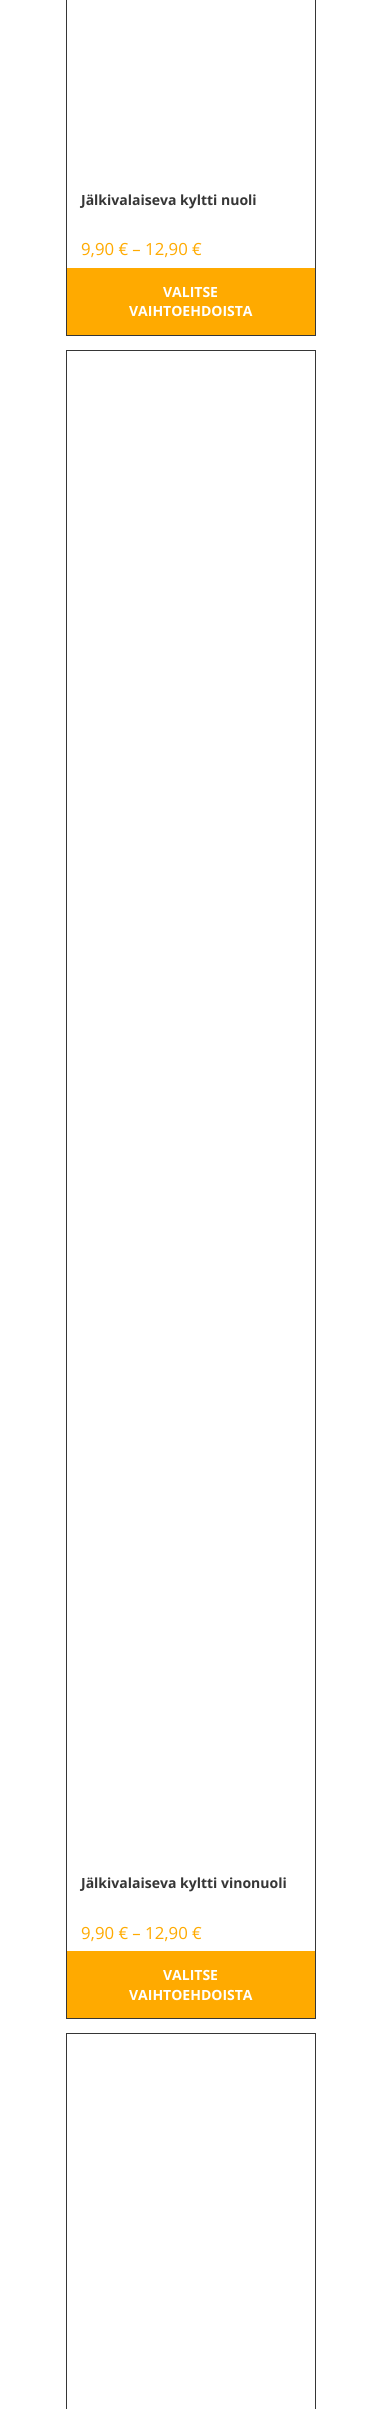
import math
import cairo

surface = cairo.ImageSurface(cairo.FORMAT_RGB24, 366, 2409)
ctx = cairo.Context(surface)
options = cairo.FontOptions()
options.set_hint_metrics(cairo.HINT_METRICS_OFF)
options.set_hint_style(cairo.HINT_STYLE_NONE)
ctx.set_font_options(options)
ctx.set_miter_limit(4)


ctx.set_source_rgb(1, 1, 1)
ctx.paint()
ctx.rectangle(66.5, -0.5, 249, 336)
ctx.set_source_rgb(0.212, 0.212, 0.212)
ctx.set_line_width(1)
ctx.stroke()
ctx.select_font_face("Open Sans", cairo.FONT_SLANT_NORMAL, cairo.FONT_WEIGHT_BOLD)
ctx.set_font_size(14)
ctx.move_to(81, 205)
ctx.show_text("Jälkivalaiseva kyltti nuoli")
ctx.select_font_face("Open Sans")
ctx.set_font_size(16.75)
ctx.set_source_rgb(1, 0.667, 0)
ctx.move_to(81, 255)
ctx.show_text("9,90 € – 12,90 €")
ctx.rectangle(67, 268, 248, 67)
ctx.fill()
ctx.select_font_face("Open Sans", cairo.FONT_SLANT_NORMAL, cairo.FONT_WEIGHT_BOLD)
ctx.set_font_size(14)
ctx.set_source_rgb(1, 1, 1)
ctx.move_to(163, 297)
ctx.show_text("VALITSE")
ctx.move_to(129, 316)
ctx.show_text("VAIHTOEHDOISTA")
ctx.rectangle(66.5, 350.5, 249, 1668)
ctx.set_source_rgb(0.212, 0.212, 0.212)
ctx.stroke()
ctx.move_to(81, 1888)
ctx.show_text("Jälkivalaiseva kyltti vinonuoli")
ctx.select_font_face("Open Sans")
ctx.set_font_size(16.75)
ctx.set_source_rgb(1, 0.667, 0)
ctx.move_to(81, 1939)
ctx.show_text("9,90 € – 12,90 €")
ctx.rectangle(67, 1951, 248, 67)
ctx.fill()
ctx.select_font_face("Open Sans", cairo.FONT_SLANT_NORMAL, cairo.FONT_WEIGHT_BOLD)
ctx.set_font_size(14)
ctx.set_source_rgb(1, 1, 1)
ctx.move_to(163, 1980)
ctx.show_text("VALITSE")
ctx.move_to(129, 2000)
ctx.show_text("VAIHTOEHDOISTA")
ctx.rectangle(66.5, 2033.5, 249, 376)
ctx.set_source_rgb(0.212, 0.212, 0.212)
ctx.stroke()
surface.write_to_png("page.png")
